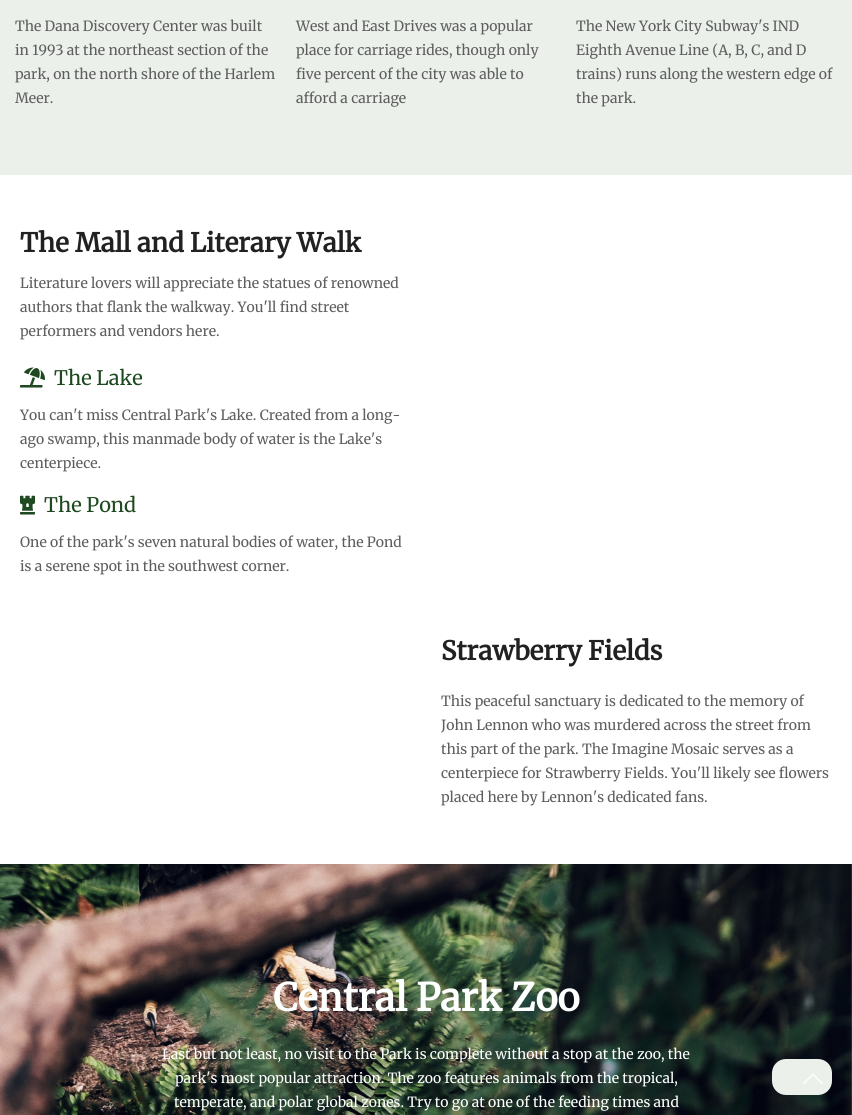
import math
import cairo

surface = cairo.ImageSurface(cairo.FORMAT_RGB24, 852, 1115)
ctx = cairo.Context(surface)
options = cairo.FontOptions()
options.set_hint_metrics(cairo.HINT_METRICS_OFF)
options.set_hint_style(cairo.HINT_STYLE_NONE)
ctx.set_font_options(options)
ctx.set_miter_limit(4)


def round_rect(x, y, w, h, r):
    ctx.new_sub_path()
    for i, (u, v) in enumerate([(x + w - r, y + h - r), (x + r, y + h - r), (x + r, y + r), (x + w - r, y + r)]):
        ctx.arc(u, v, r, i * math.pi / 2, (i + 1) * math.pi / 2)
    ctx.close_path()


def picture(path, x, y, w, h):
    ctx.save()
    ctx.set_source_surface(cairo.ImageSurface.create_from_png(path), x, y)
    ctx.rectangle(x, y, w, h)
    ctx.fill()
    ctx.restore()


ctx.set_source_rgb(1, 1, 1)
ctx.paint()
ctx.set_source_rgb(0.918, 0.941, 0.918)
ctx.rectangle(0, 0, 852, 175)
ctx.fill()
ctx.select_font_face("Merriweather Light")
ctx.set_font_size(14)
ctx.set_source_rgb(0.369, 0.369, 0.369)
ctx.move_to(15, 31)
ctx.show_text("The Dana Discovery Center was built")
ctx.move_to(15, 55)
ctx.show_text("in 1993 at the northeast section of the")
ctx.move_to(15, 79)
ctx.show_text("park, on the north shore of the Harlem")
ctx.move_to(15, 103)
ctx.show_text("Meer.")
ctx.move_to(296, 31)
ctx.show_text("West and East Drives was a popular")
ctx.move_to(296, 55)
ctx.show_text("place for carriage rides, though only")
ctx.move_to(296, 79)
ctx.show_text("five percent of the city was able to")
ctx.move_to(296, 103)
ctx.show_text("afford a carriage")
ctx.move_to(576, 31)
ctx.show_text("The New York City Subway's IND")
ctx.move_to(576, 55)
ctx.show_text("Eighth Avenue Line (A, B, C, and D")
ctx.move_to(576, 79)
ctx.show_text("trains) runs along the western edge of")
ctx.move_to(576, 103)
ctx.show_text("the park.")
ctx.select_font_face("Merriweather", cairo.FONT_SLANT_NORMAL, cairo.FONT_WEIGHT_BOLD)
ctx.set_font_size(26)
ctx.set_source_rgb(0.129, 0.129, 0.129)
ctx.move_to(20, 252)
ctx.show_text("The Mall and Literary Walk")
ctx.select_font_face("Merriweather Light")
ctx.set_font_size(14)
ctx.set_source_rgb(0.369, 0.369, 0.369)
ctx.move_to(20, 288)
ctx.show_text("Literature lovers will appreciate the statues of renowned")
ctx.move_to(20, 312)
ctx.show_text("authors that flank the walkway. You'll find street")
ctx.move_to(20, 336)
ctx.show_text("performers and vendors here.")
picture("img1.png", 20, 367, 25, 21)
ctx.set_font_size(20)
ctx.set_source_rgb(0.122, 0.286, 0.125)
ctx.move_to(54, 385)
ctx.show_text("The Lake")
ctx.set_font_size(14)
ctx.set_source_rgb(0.369, 0.369, 0.369)
ctx.move_to(20, 420)
ctx.show_text("You can't miss Central Park's Lake. Created from a long-")
ctx.move_to(20, 444)
ctx.show_text("ago swamp, this manmade body of water is the Lake's")
ctx.move_to(20, 468)
ctx.show_text("centerpiece.")
picture("img2.png", 20, 495, 15, 20)
ctx.set_font_size(20)
ctx.set_source_rgb(0.122, 0.286, 0.125)
ctx.move_to(44, 512)
ctx.show_text("The Pond")
ctx.set_font_size(14)
ctx.set_source_rgb(0.369, 0.369, 0.369)
ctx.move_to(20, 547)
ctx.show_text("One of the park's seven natural bodies of water, the Pond")
ctx.move_to(20, 571)
ctx.show_text("is a serene spot in the southwest corner.")
ctx.select_font_face("Merriweather", cairo.FONT_SLANT_NORMAL, cairo.FONT_WEIGHT_BOLD)
ctx.set_font_size(26)
ctx.set_source_rgb(0.129, 0.129, 0.129)
ctx.move_to(441, 660)
ctx.show_text("Strawberry Fields")
ctx.select_font_face("Merriweather Light")
ctx.set_font_size(14)
ctx.set_source_rgb(0.369, 0.369, 0.369)
ctx.move_to(441, 706)
ctx.show_text("This peaceful sanctuary is dedicated to the memory of")
ctx.move_to(441, 730)
ctx.show_text("John Lennon who was murdered across the street from")
ctx.move_to(441, 754)
ctx.show_text("this part of the park. The Imagine Mosaic serves as a")
ctx.move_to(441, 778)
ctx.show_text("centerpiece for Strawberry Fields. You'll likely see flowers")
ctx.move_to(441, 802)
ctx.show_text("placed here by Lennon's dedicated fans.")
picture("img3.png", 0, 864, 852, 251)
ctx.select_font_face("Merriweather", cairo.FONT_SLANT_NORMAL, cairo.FONT_WEIGHT_BOLD)
ctx.set_font_size(38)
ctx.set_source_rgb(0.996, 1, 1)
ctx.move_to(273, 1011)
ctx.show_text("Central Park Zoo")
ctx.select_font_face("Merriweather Light")
ctx.set_font_size(14)
ctx.move_to(162, 1059)
ctx.show_text("Last but not least, no visit to the Park is complete without a stop at the zoo, the")
ctx.move_to(175, 1083)
ctx.show_text("park's most popular attraction. The zoo features animals from the tropical,")
ctx.move_to(174, 1107)
ctx.show_text("temperate, and polar global zones. Try to go at one of the feeding times and")
ctx.set_source_rgb(0.918, 0.941, 0.918)
round_rect(772, 1059, 60, 36, 14)
ctx.fill()
ctx.new_path()
ctx.move_to(822.5, 1083.5)
ctx.line_to(813, 1074.5)
ctx.line_to(803.5, 1083.5)
ctx.set_source_rgb(1, 1, 1)
ctx.set_line_width(1.4)
ctx.set_line_cap(cairo.LINE_CAP_ROUND)
ctx.stroke()
surface.write_to_png("page.png")
